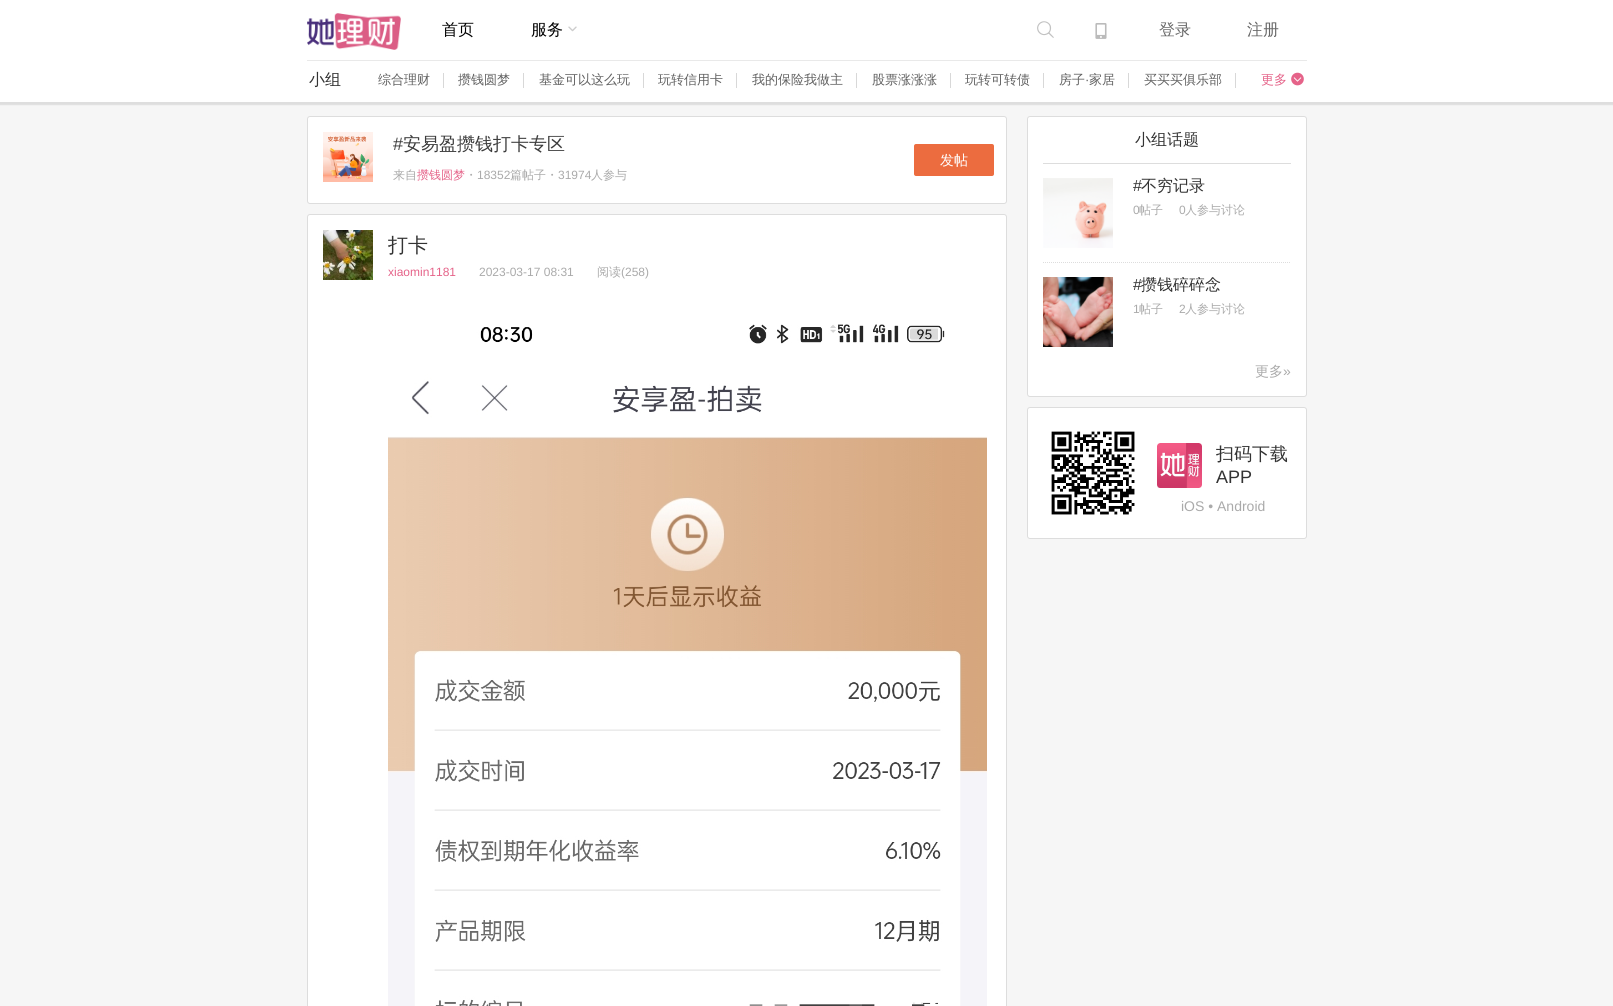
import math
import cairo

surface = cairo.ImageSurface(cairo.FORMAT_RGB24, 1613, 1006)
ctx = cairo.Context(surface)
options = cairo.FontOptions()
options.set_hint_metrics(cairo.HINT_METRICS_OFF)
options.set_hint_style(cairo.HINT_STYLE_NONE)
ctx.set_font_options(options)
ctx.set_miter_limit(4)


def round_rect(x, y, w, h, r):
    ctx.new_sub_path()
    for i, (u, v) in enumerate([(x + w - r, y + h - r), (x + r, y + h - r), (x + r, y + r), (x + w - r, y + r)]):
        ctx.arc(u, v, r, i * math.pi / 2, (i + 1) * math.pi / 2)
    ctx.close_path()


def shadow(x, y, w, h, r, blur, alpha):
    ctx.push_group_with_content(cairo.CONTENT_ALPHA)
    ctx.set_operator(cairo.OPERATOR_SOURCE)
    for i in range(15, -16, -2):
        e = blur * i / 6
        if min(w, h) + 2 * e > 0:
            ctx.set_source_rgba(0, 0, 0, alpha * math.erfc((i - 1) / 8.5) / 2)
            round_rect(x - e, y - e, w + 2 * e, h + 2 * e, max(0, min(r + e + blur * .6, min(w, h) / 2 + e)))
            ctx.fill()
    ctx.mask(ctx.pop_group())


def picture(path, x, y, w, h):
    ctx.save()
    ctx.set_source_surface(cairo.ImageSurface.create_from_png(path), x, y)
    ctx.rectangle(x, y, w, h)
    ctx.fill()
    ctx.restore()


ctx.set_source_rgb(0.961, 0.961, 0.961)
ctx.paint()
ctx.set_source_rgb(1, 1, 1)
ctx.rectangle(0, 0, 1613, 60)
ctx.fill()
picture("img1.png", 307, 13, 94, 37)
ctx.select_font_face("WenQuanYi Zen Hei Medium")
ctx.set_font_size(16)
ctx.set_source_rgb(0, 0, 0)
ctx.move_to(442, 35)
ctx.show_text("首页")
ctx.move_to(531, 35)
ctx.show_text("服务")
picture("img2.png", 568, 26, 9, 6)
picture("img3.png", 1037, 21, 17, 17)
picture("img4.png", 1095, 23, 12, 16)
ctx.set_source_rgb(0.4, 0.4, 0.4)
ctx.move_to(1159, 35)
ctx.show_text("登录")
ctx.move_to(1247, 35)
ctx.show_text("注册")
ctx.set_source_rgb(0, 0, 0)
shadow(-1, 61, 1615, 44, 0, 0.5, 0.1)
ctx.set_source_rgb(1, 1, 1)
ctx.rectangle(0, 60, 1613, 42)
ctx.fill()
ctx.set_source_rgb(0.914, 0.914, 0.914)
ctx.rectangle(307, 60, 1000, 1)
ctx.fill()
ctx.set_source_rgb(0.2, 0.2, 0.2)
ctx.move_to(309, 85)
ctx.show_text("小组")
ctx.set_font_size(13)
ctx.set_source_rgb(0.376, 0.376, 0.376)
ctx.move_to(378, 84)
ctx.show_text("综合理财")
ctx.set_source_rgb(0.847, 0.847, 0.847)
ctx.rectangle(443, 73, 1, 15)
ctx.fill()
ctx.set_source_rgb(0.376, 0.376, 0.376)
ctx.move_to(458, 84)
ctx.show_text("攒钱圆梦")
ctx.set_source_rgb(0.847, 0.847, 0.847)
ctx.rectangle(523, 73, 1, 15)
ctx.fill()
ctx.set_source_rgb(0.376, 0.376, 0.376)
ctx.move_to(539, 84)
ctx.show_text("基金可以这么玩")
ctx.set_source_rgb(0.847, 0.847, 0.847)
ctx.rectangle(643, 73, 1, 15)
ctx.fill()
ctx.set_source_rgb(0.376, 0.376, 0.376)
ctx.move_to(658, 84)
ctx.show_text("玩转信用卡")
ctx.set_source_rgb(0.847, 0.847, 0.847)
ctx.rectangle(736, 73, 1, 15)
ctx.fill()
ctx.set_source_rgb(0.376, 0.376, 0.376)
ctx.move_to(752, 84)
ctx.show_text("我的保险我做主")
ctx.set_source_rgb(0.847, 0.847, 0.847)
ctx.rectangle(856, 73, 1, 15)
ctx.fill()
ctx.set_source_rgb(0.376, 0.376, 0.376)
ctx.move_to(872, 84)
ctx.show_text("股票涨涨涨")
ctx.set_source_rgb(0.847, 0.847, 0.847)
ctx.rectangle(950, 73, 1, 15)
ctx.fill()
ctx.set_source_rgb(0.376, 0.376, 0.376)
ctx.move_to(965, 84)
ctx.show_text("玩转可转债")
ctx.set_source_rgb(0.847, 0.847, 0.847)
ctx.rectangle(1043, 73, 1, 15)
ctx.fill()
ctx.set_source_rgb(0.376, 0.376, 0.376)
ctx.move_to(1059, 84)
ctx.show_text("房子")
ctx.select_font_face("Liberation Sans")
ctx.move_to(1085, 84)
ctx.show_text("·")
ctx.select_font_face("WenQuanYi Zen Hei Medium")
ctx.move_to(1089, 84)
ctx.show_text("家居")
ctx.set_source_rgb(0.847, 0.847, 0.847)
ctx.rectangle(1128, 73, 1, 15)
ctx.fill()
ctx.set_source_rgb(0.376, 0.376, 0.376)
ctx.move_to(1144, 84)
ctx.show_text("买买买俱乐部")
ctx.set_source_rgb(0.847, 0.847, 0.847)
ctx.rectangle(1235, 73, 1, 15)
ctx.fill()
ctx.set_source_rgb(0.898, 0.388, 0.537)
ctx.move_to(1261, 84)
ctx.show_text("更多")
picture("img5.png", 1291, 72, 13, 14)
ctx.set_source_rgb(1, 1, 1)
round_rect(307.5, 116.5, 699, 87, 2.5)
ctx.fill_preserve()
ctx.set_source_rgb(0.867, 0.867, 0.867)
ctx.set_line_width(1)
ctx.stroke()
picture("img6.png", 323, 132, 50, 50)
ctx.select_font_face("Liberation Sans")
ctx.set_font_size(18)
ctx.set_source_rgb(0.235, 0.235, 0.235)
ctx.move_to(393, 150)
ctx.show_text("#")
ctx.select_font_face("WenQuanYi Zen Hei Medium")
ctx.move_to(403, 150)
ctx.show_text("安易盈攒钱打卡专区")
ctx.set_font_size(12)
ctx.set_source_rgb(0.667, 0.667, 0.667)
ctx.move_to(393, 179)
ctx.show_text("来自")
ctx.set_source_rgb(0.898, 0.388, 0.537)
ctx.move_to(417, 179)
ctx.show_text("攒钱圆梦")
ctx.set_source_rgb(0.667, 0.667, 0.667)
ctx.move_to(465, 179)
ctx.show_text("・")
ctx.select_font_face("Liberation Sans")
ctx.move_to(477, 179)
ctx.show_text("18352")
ctx.select_font_face("WenQuanYi Zen Hei Medium")
ctx.move_to(510, 179)
ctx.show_text("篇帖子・")
ctx.select_font_face("Liberation Sans")
ctx.move_to(558, 179)
ctx.show_text("31974")
ctx.select_font_face("WenQuanYi Zen Hei Medium")
ctx.move_to(591, 179)
ctx.show_text("人参与")
ctx.set_source_rgb(0.925, 0.424, 0.247)
round_rect(914, 144, 80, 32, 2)
ctx.fill()
ctx.set_font_size(14)
ctx.set_source_rgb(1, 1, 1)
ctx.move_to(940, 165)
ctx.show_text("发帖")
round_rect(307.5, 214.5, 699, 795, 2.5)
ctx.fill_preserve()
ctx.set_source_rgb(0.867, 0.867, 0.867)
ctx.stroke()
picture("img7.png", 323, 230, 50, 50)
ctx.set_font_size(20)
ctx.set_source_rgb(0.2, 0.2, 0.2)
ctx.move_to(388, 252)
ctx.show_text("打卡")
ctx.select_font_face("Liberation Sans")
ctx.set_font_size(12)
ctx.set_source_rgb(0.898, 0.388, 0.537)
ctx.move_to(388, 276)
ctx.show_text("xiaomin1181")
ctx.set_source_rgb(0.667, 0.667, 0.667)
ctx.move_to(479, 276)
ctx.show_text("2023-03-17 08:31")
ctx.select_font_face("WenQuanYi Zen Hei Medium")
ctx.move_to(597, 276)
ctx.show_text("阅读")
ctx.select_font_face("Liberation Sans")
ctx.move_to(621, 276)
ctx.show_text("(258)")
picture("img8.png", 388, 324, 599, 682)
ctx.set_source_rgb(1, 1, 1)
round_rect(1027.5, 116.5, 279, 280, 2.5)
ctx.fill_preserve()
ctx.set_source_rgb(0.867, 0.867, 0.867)
ctx.stroke()
ctx.rectangle(1043, 163, 248, 1)
ctx.fill()
ctx.select_font_face("WenQuanYi Zen Hei Medium")
ctx.set_font_size(16)
ctx.set_source_rgb(0.2, 0.2, 0.2)
ctx.move_to(1135, 145)
ctx.show_text("小组话题")
ctx.new_path()
ctx.move_to(1043, 262.5)
ctx.line_to(1291, 262.5)
ctx.set_source_rgb(0.867, 0.867, 0.867)
ctx.set_dash([1, 1])
ctx.stroke()
picture("img9.png", 1043, 178, 70, 70)
ctx.select_font_face("Liberation Sans")
ctx.set_source_rgb(0.2, 0.2, 0.2)
ctx.move_to(1133, 191)
ctx.show_text("#")
ctx.select_font_face("WenQuanYi Zen Hei Medium")
ctx.move_to(1141, 191)
ctx.show_text("不穷记录")
ctx.select_font_face("Liberation Sans")
ctx.set_font_size(12)
ctx.set_source_rgb(0.667, 0.667, 0.667)
ctx.move_to(1133, 214)
ctx.show_text("0")
ctx.select_font_face("WenQuanYi Zen Hei Medium")
ctx.move_to(1139, 214)
ctx.show_text("帖子")
ctx.select_font_face("Liberation Sans")
ctx.move_to(1179, 214)
ctx.show_text("0")
ctx.select_font_face("WenQuanYi Zen Hei Medium")
ctx.move_to(1185, 214)
ctx.show_text("人参与讨论")
picture("img10.png", 1043, 277, 70, 70)
ctx.select_font_face("Liberation Sans")
ctx.set_font_size(16)
ctx.set_source_rgb(0.2, 0.2, 0.2)
ctx.move_to(1133, 290)
ctx.show_text("#")
ctx.save()
ctx.rectangle(1133, 277, 158, 43)
ctx.clip()
ctx.select_font_face("WenQuanYi Zen Hei Medium")
ctx.move_to(1141, 290)
ctx.show_text("攒钱碎碎念")
ctx.restore()
ctx.set_font_size(12)
ctx.set_source_rgb(0.667, 0.667, 0.667)
ctx.move_to(1133, 313)
ctx.show_text("1")
ctx.select_font_face("WenQuanYi Zen Hei Medium")
ctx.move_to(1139, 313)
ctx.show_text("帖子")
ctx.select_font_face("Liberation Sans")
ctx.move_to(1179, 313)
ctx.show_text("2")
ctx.select_font_face("WenQuanYi Zen Hei Medium")
ctx.move_to(1185, 313)
ctx.show_text("人参与讨论")
ctx.set_font_size(14)
ctx.move_to(1255, 376)
ctx.show_text("更多")
ctx.select_font_face("Liberation Sans")
ctx.move_to(1283, 376)
ctx.show_text("»")
ctx.set_source_rgb(1, 1, 1)
round_rect(1027.5, 407.5, 279, 131, 2.5)
ctx.fill_preserve()
ctx.set_source_rgb(0.867, 0.867, 0.867)
ctx.set_dash([])
ctx.stroke()
picture("img11.png", 1051, 431, 84, 84)
picture("img12.png", 1157, 443, 45, 45)
ctx.select_font_face("WenQuanYi Zen Hei Medium")
ctx.set_font_size(18)
ctx.set_source_rgb(0.2, 0.2, 0.2)
ctx.move_to(1216, 460)
ctx.show_text("扫码下载")
ctx.select_font_face("Liberation Sans")
ctx.move_to(1216, 483)
ctx.show_text("APP")
ctx.set_font_size(14)
ctx.set_source_rgb(0.667, 0.667, 0.667)
ctx.move_to(1181, 511)
ctx.show_text("iOS • Android")
surface.write_to_png("page.png")
